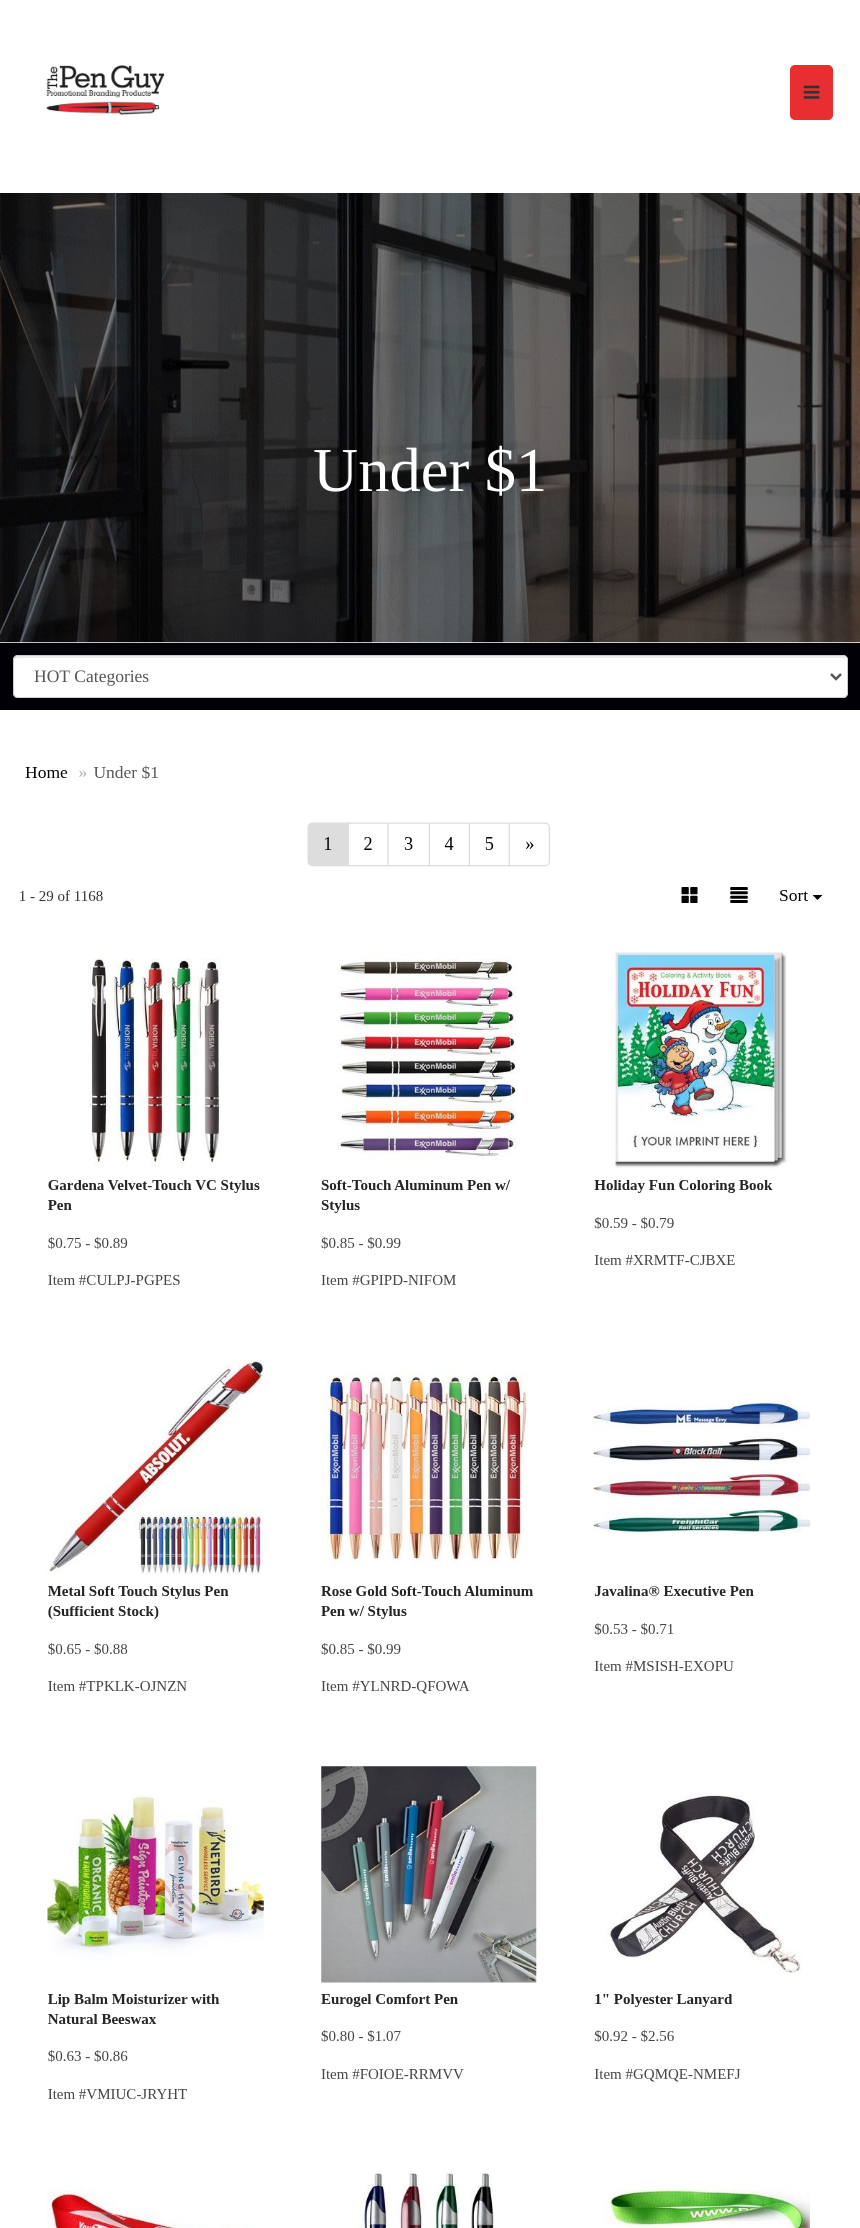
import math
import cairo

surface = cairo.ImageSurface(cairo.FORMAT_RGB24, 860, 2228)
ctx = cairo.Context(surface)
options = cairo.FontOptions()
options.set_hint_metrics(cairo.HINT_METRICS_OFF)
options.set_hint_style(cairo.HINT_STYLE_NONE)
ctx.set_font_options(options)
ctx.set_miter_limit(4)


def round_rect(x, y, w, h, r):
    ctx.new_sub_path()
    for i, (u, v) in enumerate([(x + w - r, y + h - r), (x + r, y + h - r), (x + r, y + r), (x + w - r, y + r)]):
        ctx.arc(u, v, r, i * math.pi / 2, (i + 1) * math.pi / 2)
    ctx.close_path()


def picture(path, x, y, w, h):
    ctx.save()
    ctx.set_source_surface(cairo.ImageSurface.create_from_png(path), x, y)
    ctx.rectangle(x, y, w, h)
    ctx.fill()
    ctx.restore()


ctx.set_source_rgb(1, 1, 1)
ctx.paint()
picture("img1.png", 46, 65, 119, 50)
ctx.set_source_rgb(0.906, 0.184, 0.192)
round_rect(790.5, 65.5, 42, 54, 4.5)
ctx.fill_preserve()
ctx.set_line_width(1)
ctx.stroke()
picture("img2.png", 803, 85, 17, 14)
picture("img3.png", 0, 193, 860, 450)
ctx.select_font_face("Liberation Serif")
ctx.set_font_size(62.5)
ctx.set_source_rgb(1, 1, 1)
ctx.move_to(313, 491)
ctx.show_text("Under $1")
ctx.set_source_rgb(0.004, 0, 0.027)
ctx.rectangle(0, 643, 860, 67)
ctx.fill()
ctx.set_source_rgb(1, 1, 1)
round_rect(13, 655, 835, 43, 5)
ctx.fill()
ctx.set_source_rgb(0.925, 0.925, 0.925)
ctx.new_path()
ctx.move_to(18, 658)
ctx.line_to(842, 658)
ctx.curve_to(845, 658, 846, 659, 846, 661)
ctx.curve_to(846, 658, 845, 656, 842, 656)
ctx.line_to(18, 656)
ctx.curve_to(15, 656, 14, 658, 14, 661)
ctx.curve_to(14, 659, 15, 658, 18, 658)
ctx.close_path()
ctx.fill()
round_rect(13.5, 655.5, 834, 42, 4.5)
ctx.set_source_rgb(0.8, 0.8, 0.8)
ctx.stroke()
ctx.new_path()
ctx.move_to(831, 674)
ctx.line_to(836, 679)
ctx.line_to(841, 674)
ctx.set_source_rgb(0.333, 0.333, 0.333)
ctx.set_line_width(2.5)
ctx.stroke()
ctx.set_font_size(17.5)
ctx.move_to(34, 682)
ctx.show_text("HOT Categories")
picture("img4.png", 20, 765, 803, 1463)
surface.write_to_png("page.png")
